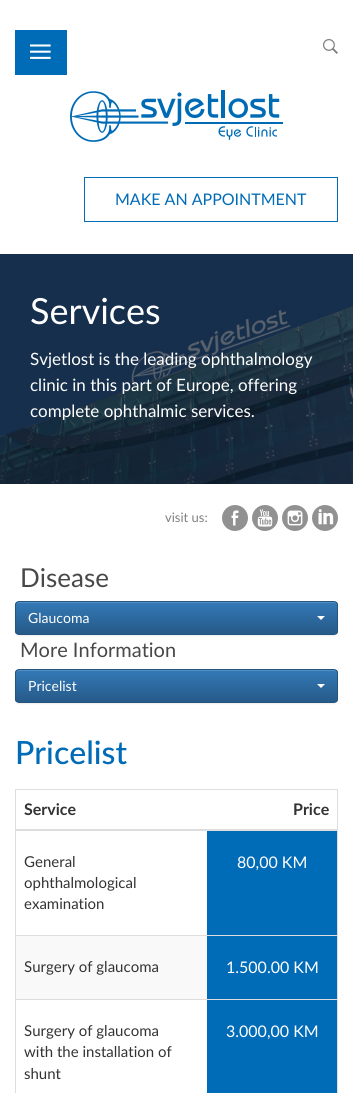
import math
import cairo

surface = cairo.ImageSurface(cairo.FORMAT_RGB24, 353, 1093)
ctx = cairo.Context(surface)
options = cairo.FontOptions()
options.set_hint_metrics(cairo.HINT_METRICS_OFF)
options.set_hint_style(cairo.HINT_STYLE_NONE)
ctx.set_font_options(options)
ctx.set_miter_limit(4)


def round_rect(x, y, w, h, r):
    ctx.new_sub_path()
    for i, (u, v) in enumerate([(x + w - r, y + h - r), (x + r, y + h - r), (x + r, y + r), (x + w - r, y + r)]):
        ctx.arc(u, v, r, i * math.pi / 2, (i + 1) * math.pi / 2)
    ctx.close_path()


def shadow(x, y, w, h, r, blur, alpha):
    ctx.push_group_with_content(cairo.CONTENT_ALPHA)
    ctx.set_operator(cairo.OPERATOR_SOURCE)
    for i in range(15, -16, -2):
        e = blur * i / 6
        if min(w, h) + 2 * e > 0:
            ctx.set_source_rgba(0, 0, 0, alpha * math.erfc((i - 1) / 8.5) / 2)
            round_rect(x - e, y - e, w + 2 * e, h + 2 * e, max(0, min(r + e + blur * .6, min(w, h) / 2 + e)))
            ctx.fill()
    ctx.mask(ctx.pop_group())


def picture(path, x, y, w, h):
    ctx.save()
    ctx.set_source_surface(cairo.ImageSurface.create_from_png(path), x, y)
    ctx.rectangle(x, y, w, h)
    ctx.fill()
    ctx.restore()


ctx.set_source_rgb(1, 1, 1)
ctx.paint()
ctx.set_source_rgb(0, 0.42, 0.718)
ctx.rectangle(15, 30, 52, 45)
ctx.fill()
picture("img1.png", 30, 44, 21, 15)
picture("img2.png", 323, 39, 15, 15)
picture("img3.png", 70, 90, 213, 52)
ctx.rectangle(84.5, 177.5, 253, 44)
ctx.set_line_width(1)
ctx.stroke()
ctx.select_font_face("Lato")
ctx.set_font_size(16)
ctx.move_to(115, 205)
ctx.show_text("MAKE AN APPOINTMENT")
picture("img4.png", 0, 254, 353, 230)
ctx.set_font_size(36)
ctx.set_source_rgb(1, 1, 1)
ctx.move_to(30, 324)
ctx.show_text("Services")
ctx.set_font_size(17)
ctx.move_to(30, 365)
ctx.show_text("Svjetlost is the leading ophthalmology")
ctx.move_to(30, 391)
ctx.show_text("clinic in this part of Europe, offering")
ctx.move_to(30, 417)
ctx.show_text("complete ophthalmic services.")
ctx.set_font_size(13)
ctx.set_source_rgb(0.498, 0.498, 0.498)
ctx.move_to(165, 522)
ctx.show_text("visit us:")
picture("img5.png", 222, 505, 26, 26)
picture("img6.png", 252, 505, 26, 26)
picture("img7.png", 282, 505, 26, 26)
picture("img8.png", 312, 505, 26, 26)
ctx.set_font_size(26)
ctx.set_source_rgb(0.282, 0.282, 0.282)
ctx.move_to(20, 587)
ctx.show_text("Disease")
ctx.set_source_rgb(0, 0, 0)
shadow(15, 602, 323, 34, 4, 0.5, 0.07)
ctx.save()
round_rect(15, 601, 323, 34, 4)
ctx.clip()
gradient = cairo.LinearGradient(177, 602, 177, 634)
gradient.add_color_stop_rgba(0, 0.2, 0.478, 0.718, 1)
gradient.add_color_stop_rgba(1, 0.149, 0.353, 0.533, 1)
ctx.set_source(gradient)
ctx.rectangle(15, 602, 323, 32)
ctx.fill()
ctx.restore()
ctx.set_source_rgb(0.322, 0.557, 0.757)
ctx.new_path()
ctx.move_to(19, 603)
ctx.line_to(334, 603)
ctx.curve_to(336, 603, 337, 604, 337, 606)
ctx.line_to(336, 603)
ctx.line_to(335, 602)
ctx.line_to(19, 602)
ctx.curve_to(17, 602, 16, 604, 16, 606)
ctx.curve_to(16, 604, 17, 603, 19, 603)
ctx.close_path()
ctx.fill()
round_rect(15.5, 601.5, 322, 33, 3.5)
ctx.set_source_rgb(0.141, 0.333, 0.502)
ctx.stroke()
ctx.set_font_size(14)
ctx.set_source_rgb(1, 1, 1)
ctx.move_to(28, 623)
ctx.show_text("Glaucoma")
ctx.new_path()
ctx.move_to(317, 616)
ctx.line_to(325, 616)
ctx.line_to(321, 620)
ctx.close_path()
ctx.fill()
ctx.set_font_size(20)
ctx.set_source_rgb(0.282, 0.282, 0.282)
ctx.move_to(20, 657)
ctx.show_text("More Information")
ctx.set_source_rgb(0, 0, 0)
shadow(15, 670, 323, 34, 4, 0.5, 0.07)
ctx.save()
round_rect(15, 669, 323, 34, 4)
ctx.clip()
gradient = cairo.LinearGradient(177, 670, 177, 702)
gradient.add_color_stop_rgba(0, 0.2, 0.478, 0.718, 1)
gradient.add_color_stop_rgba(1, 0.149, 0.353, 0.533, 1)
ctx.set_source(gradient)
ctx.rectangle(15, 670, 323, 32)
ctx.fill()
ctx.restore()
ctx.set_source_rgb(0.322, 0.557, 0.757)
ctx.new_path()
ctx.move_to(19, 671)
ctx.line_to(334, 671)
ctx.curve_to(336, 671, 337, 672, 337, 674)
ctx.line_to(336, 671)
ctx.line_to(335, 670)
ctx.line_to(19, 670)
ctx.curve_to(17, 670, 16, 672, 16, 674)
ctx.curve_to(16, 672, 17, 671, 19, 671)
ctx.close_path()
ctx.fill()
round_rect(15.5, 669.5, 322, 33, 3.5)
ctx.set_source_rgb(0.141, 0.333, 0.502)
ctx.stroke()
ctx.set_font_size(14)
ctx.set_source_rgb(1, 1, 1)
ctx.move_to(28, 691)
ctx.show_text("Pricelist")
ctx.new_path()
ctx.move_to(317, 684)
ctx.line_to(325, 684)
ctx.line_to(321, 688)
ctx.close_path()
ctx.fill()
ctx.select_font_face("Lato Medium")
ctx.set_font_size(32)
ctx.set_source_rgb(0, 0.42, 0.718)
ctx.move_to(15, 764)
ctx.show_text("Pricelist")
ctx.rectangle(15.5, 789.5, 322, 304)
ctx.set_source_rgb(0.867, 0.867, 0.867)
ctx.stroke()
ctx.select_font_face("Lato", cairo.FONT_SLANT_NORMAL, cairo.FONT_WEIGHT_BOLD)
ctx.set_font_size(16)
ctx.set_source_rgb(0.2, 0.2, 0.2)
ctx.move_to(24, 815)
ctx.show_text("Service")
ctx.set_source_rgb(0.867, 0.867, 0.867)
ctx.rectangle(16, 829, 321, 2)
ctx.fill()
ctx.set_source_rgb(0.2, 0.2, 0.2)
ctx.move_to(293, 815)
ctx.show_text("Price")
ctx.select_font_face("Lato")
ctx.set_font_size(15)
ctx.move_to(24, 867)
ctx.show_text("General")
ctx.move_to(24, 888)
ctx.show_text("ophthalmological")
ctx.move_to(24, 909)
ctx.show_text("examination")
ctx.set_source_rgb(0, 0.42, 0.718)
ctx.rectangle(207, 831, 130, 104)
ctx.fill()
ctx.set_font_size(16)
ctx.set_source_rgb(1, 1, 1)
ctx.move_to(237, 868)
ctx.show_text("80,00 KM")
ctx.set_source_rgb(0.976, 0.976, 0.976)
ctx.rectangle(16, 936, 191, 63)
ctx.fill()
ctx.set_font_size(15)
ctx.set_source_rgb(0.2, 0.2, 0.2)
ctx.move_to(24, 972)
ctx.show_text("Surgery of glaucoma")
ctx.set_source_rgb(0, 0.42, 0.718)
ctx.rectangle(207, 936, 130, 63)
ctx.fill()
ctx.set_source_rgb(0.867, 0.867, 0.867)
ctx.rectangle(16, 935, 321, 1)
ctx.fill()
ctx.set_font_size(16)
ctx.set_source_rgb(1, 1, 1)
ctx.move_to(226, 973)
ctx.show_text("1.500.00 KM")
ctx.set_font_size(15)
ctx.set_source_rgb(0.2, 0.2, 0.2)
ctx.move_to(24, 1036)
ctx.show_text("Surgery of glaucoma")
ctx.move_to(24, 1057)
ctx.show_text("with the installation of")
ctx.move_to(24, 1079)
ctx.show_text("shunt")
ctx.set_source_rgb(0, 0.42, 0.718)
ctx.rectangle(207, 1000, 130, 93)
ctx.fill()
ctx.set_source_rgb(0.867, 0.867, 0.867)
ctx.rectangle(16, 999, 321, 1)
ctx.fill()
ctx.set_font_size(16)
ctx.set_source_rgb(1, 1, 1)
ctx.move_to(226, 1037)
ctx.show_text("3.000,00 KM")
surface.write_to_png("page.png")
